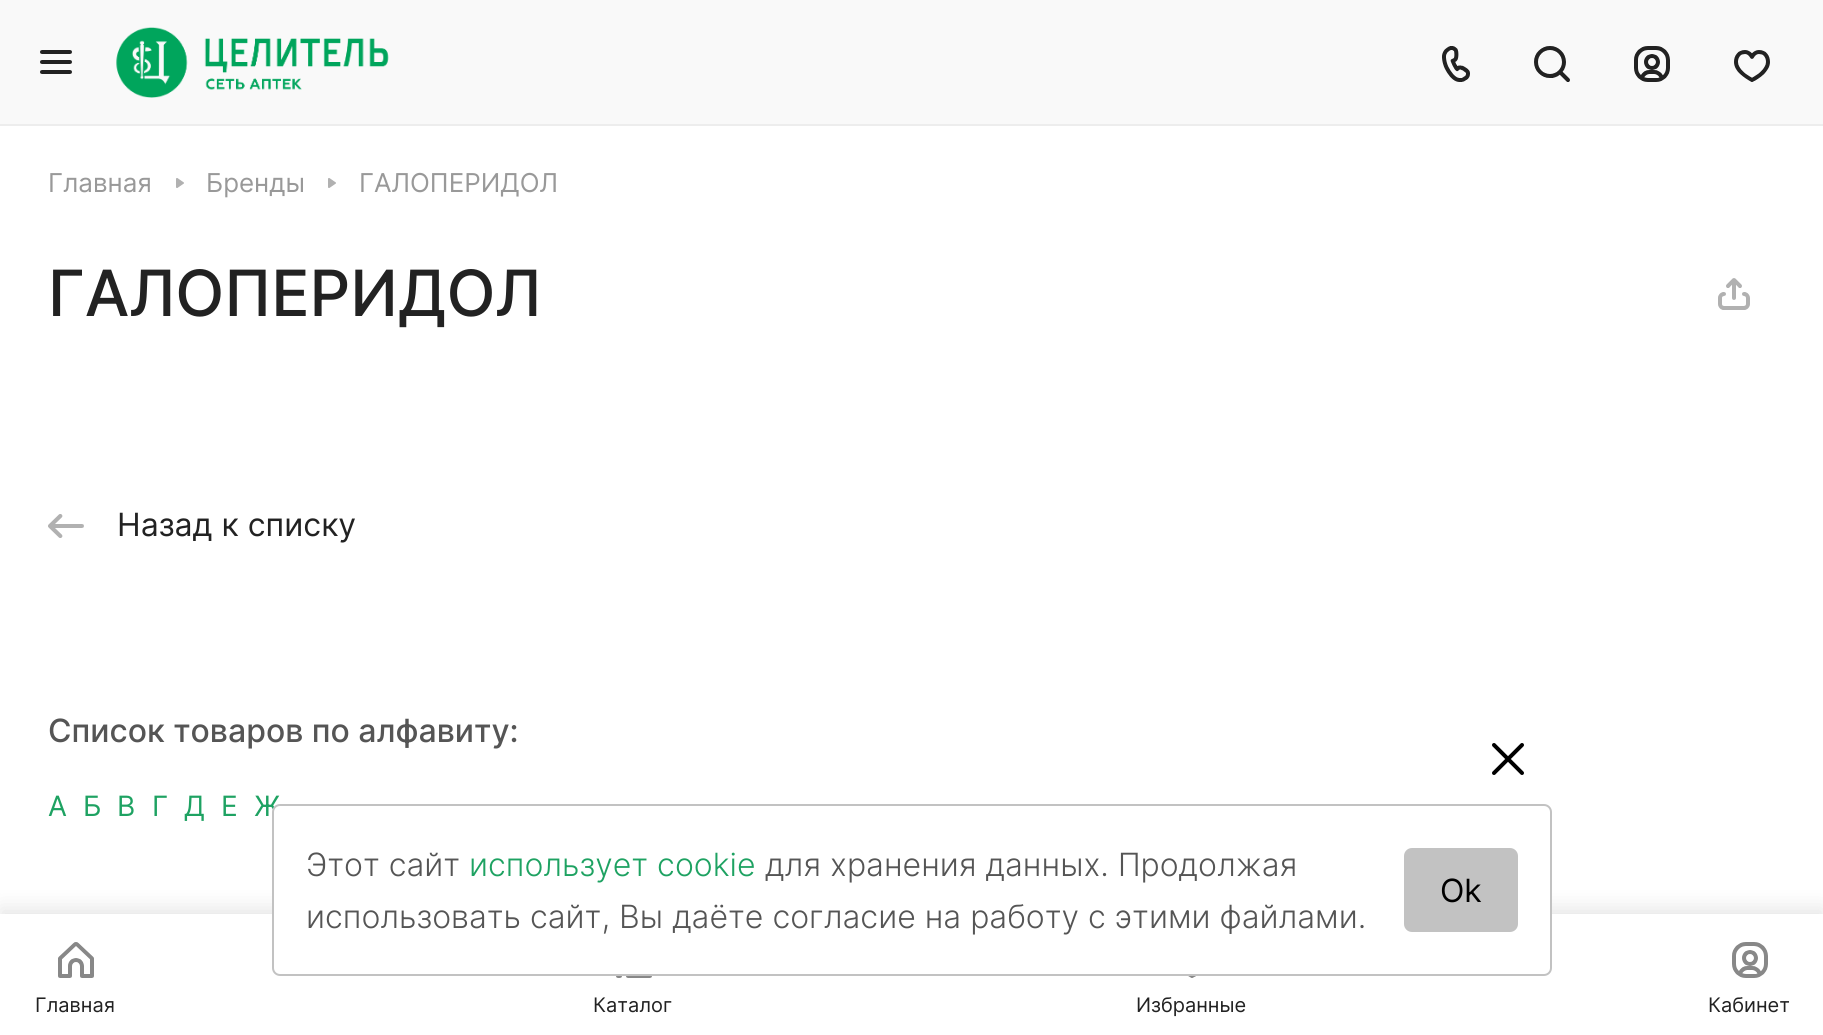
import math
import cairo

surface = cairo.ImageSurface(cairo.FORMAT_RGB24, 1823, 1035)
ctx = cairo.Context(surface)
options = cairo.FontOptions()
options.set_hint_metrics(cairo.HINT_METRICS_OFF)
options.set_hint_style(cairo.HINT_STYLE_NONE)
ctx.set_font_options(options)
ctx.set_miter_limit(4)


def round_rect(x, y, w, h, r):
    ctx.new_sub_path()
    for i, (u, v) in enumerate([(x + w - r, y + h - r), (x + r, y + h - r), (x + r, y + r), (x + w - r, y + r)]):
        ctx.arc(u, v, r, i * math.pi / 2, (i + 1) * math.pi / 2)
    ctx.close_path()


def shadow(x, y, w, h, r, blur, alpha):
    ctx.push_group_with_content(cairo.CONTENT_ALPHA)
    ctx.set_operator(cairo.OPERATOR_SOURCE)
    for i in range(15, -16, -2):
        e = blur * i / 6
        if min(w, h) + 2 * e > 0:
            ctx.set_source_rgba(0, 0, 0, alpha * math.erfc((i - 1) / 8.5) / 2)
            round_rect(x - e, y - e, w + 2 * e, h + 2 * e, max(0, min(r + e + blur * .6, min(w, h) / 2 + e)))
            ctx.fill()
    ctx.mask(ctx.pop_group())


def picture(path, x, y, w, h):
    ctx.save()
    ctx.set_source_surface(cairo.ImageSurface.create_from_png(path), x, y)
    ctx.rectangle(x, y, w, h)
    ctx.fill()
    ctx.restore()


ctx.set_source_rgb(1, 1, 1)
ctx.paint()
ctx.set_source_rgb(0.929, 0.929, 0.929)
ctx.rectangle(0, 124, 1823, 2)
ctx.fill()
ctx.set_source_rgb(0.973, 0.973, 0.973)
ctx.rectangle(0, 0, 1823, 124)
ctx.fill()
picture("img1.png", 40, 50, 32, 24)
picture("img2.png", 116, 27, 273, 71)
picture("img3.png", 1442, 46, 28, 36)
picture("img4.png", 1534, 46, 36, 36)
picture("img5.png", 1634, 46, 36, 36)
picture("img6.png", 1734, 50, 36, 32)
ctx.select_font_face("Inter")
ctx.set_font_size(26)
ctx.set_source_rgb(0.6, 0.6, 0.6)
ctx.move_to(48, 192)
ctx.show_text("Главная")
picture("img7.png", 176, 178, 8, 10)
ctx.move_to(206, 192)
ctx.show_text("Бренды")
picture("img7.png", 328, 178, 8, 10)
ctx.move_to(359, 192)
ctx.show_text("ГАЛОПЕРИДОЛ")
ctx.select_font_face("Inter Medium")
ctx.set_font_size(63.75)
ctx.set_source_rgb(0.133, 0.133, 0.133)
ctx.move_to(48, 316)
ctx.show_text("ГАЛОПЕРИДОЛ")
picture("img8.png", 1718, 278, 32, 32)
picture("img9.png", 48, 514, 36, 24)
ctx.select_font_face("Inter")
ctx.set_font_size(32)
ctx.move_to(117, 536)
ctx.show_text("Назад к списку")
ctx.select_font_face("Inter Medium")
ctx.set_source_rgb(0.333, 0.333, 0.333)
ctx.move_to(48, 742)
ctx.show_text("Список товаров по алфавиту:")
ctx.select_font_face("Inter")
ctx.set_font_size(28)
ctx.set_source_rgb(0.118, 0.635, 0.384)
ctx.move_to(48, 816)
ctx.show_text("А")
ctx.move_to(83, 816)
ctx.show_text("Б")
ctx.move_to(117, 816)
ctx.show_text("В")
ctx.move_to(152, 816)
ctx.show_text("Г")
ctx.move_to(184, 816)
ctx.show_text("Д")
ctx.move_to(221, 816)
ctx.show_text("Е")
ctx.move_to(254, 816)
ctx.show_text("Ж")
ctx.set_source_rgb(0, 0, 0)
shadow(0, 908, 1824, 122, 0, 10, 0.1)
ctx.set_source_rgb(1, 1, 1)
ctx.rectangle(0, 914, 1823, 121)
ctx.fill()
round_rect(273, 805, 1278, 170, 7)
ctx.fill_preserve()
ctx.set_source_rgb(0.761, 0.761, 0.761)
ctx.stroke()
ctx.new_path()
ctx.move_to(1494, 773)
ctx.line_to(1522, 745)
ctx.move_to(1522, 773)
ctx.line_to(1494, 745)
ctx.set_source_rgb(0, 0, 0)
ctx.set_line_width(4)
ctx.set_line_cap(cairo.LINE_CAP_ROUND)
ctx.set_line_join(cairo.LINE_JOIN_ROUND)
ctx.stroke()
ctx.select_font_face("Inter Light")
ctx.set_font_size(32)
ctx.set_source_rgb(0.333, 0.333, 0.333)
ctx.move_to(306, 876)
ctx.show_text("Этот сайт")
ctx.set_source_rgb(0.118, 0.635, 0.384)
ctx.move_to(469, 876)
ctx.show_text("использует cookie")
ctx.set_source_rgb(0.333, 0.333, 0.333)
ctx.move_to(765, 876)
ctx.show_text("для хранения данных. Продолжая")
ctx.move_to(306, 928)
ctx.show_text("использовать сайт, Вы даёте согласие на работу с этими файлами.")
ctx.set_source_rgb(0.761, 0.761, 0.761)
round_rect(1404, 848, 114, 84, 8)
ctx.fill()
ctx.select_font_face("Inter")
ctx.set_source_rgb(0, 0, 0)
ctx.move_to(1440, 902)
ctx.show_text("Ok")
picture("img10.png", 58, 942, 36, 36)
ctx.set_font_size(20)
ctx.set_source_rgb(0.133, 0.133, 0.133)
ctx.move_to(35, 1012)
ctx.show_text("Главная")
picture("img11.png", 616, 976, 36, 2)
ctx.move_to(593, 1012)
ctx.show_text("Каталог")
picture("img12.png", 1188, 976, 8, 2)
ctx.move_to(1136, 1012)
ctx.show_text("Избранные")
picture("img13.png", 1732, 942, 36, 36)
ctx.move_to(1708, 1012)
ctx.show_text("Кабинет")
surface.write_to_png("page.png")
